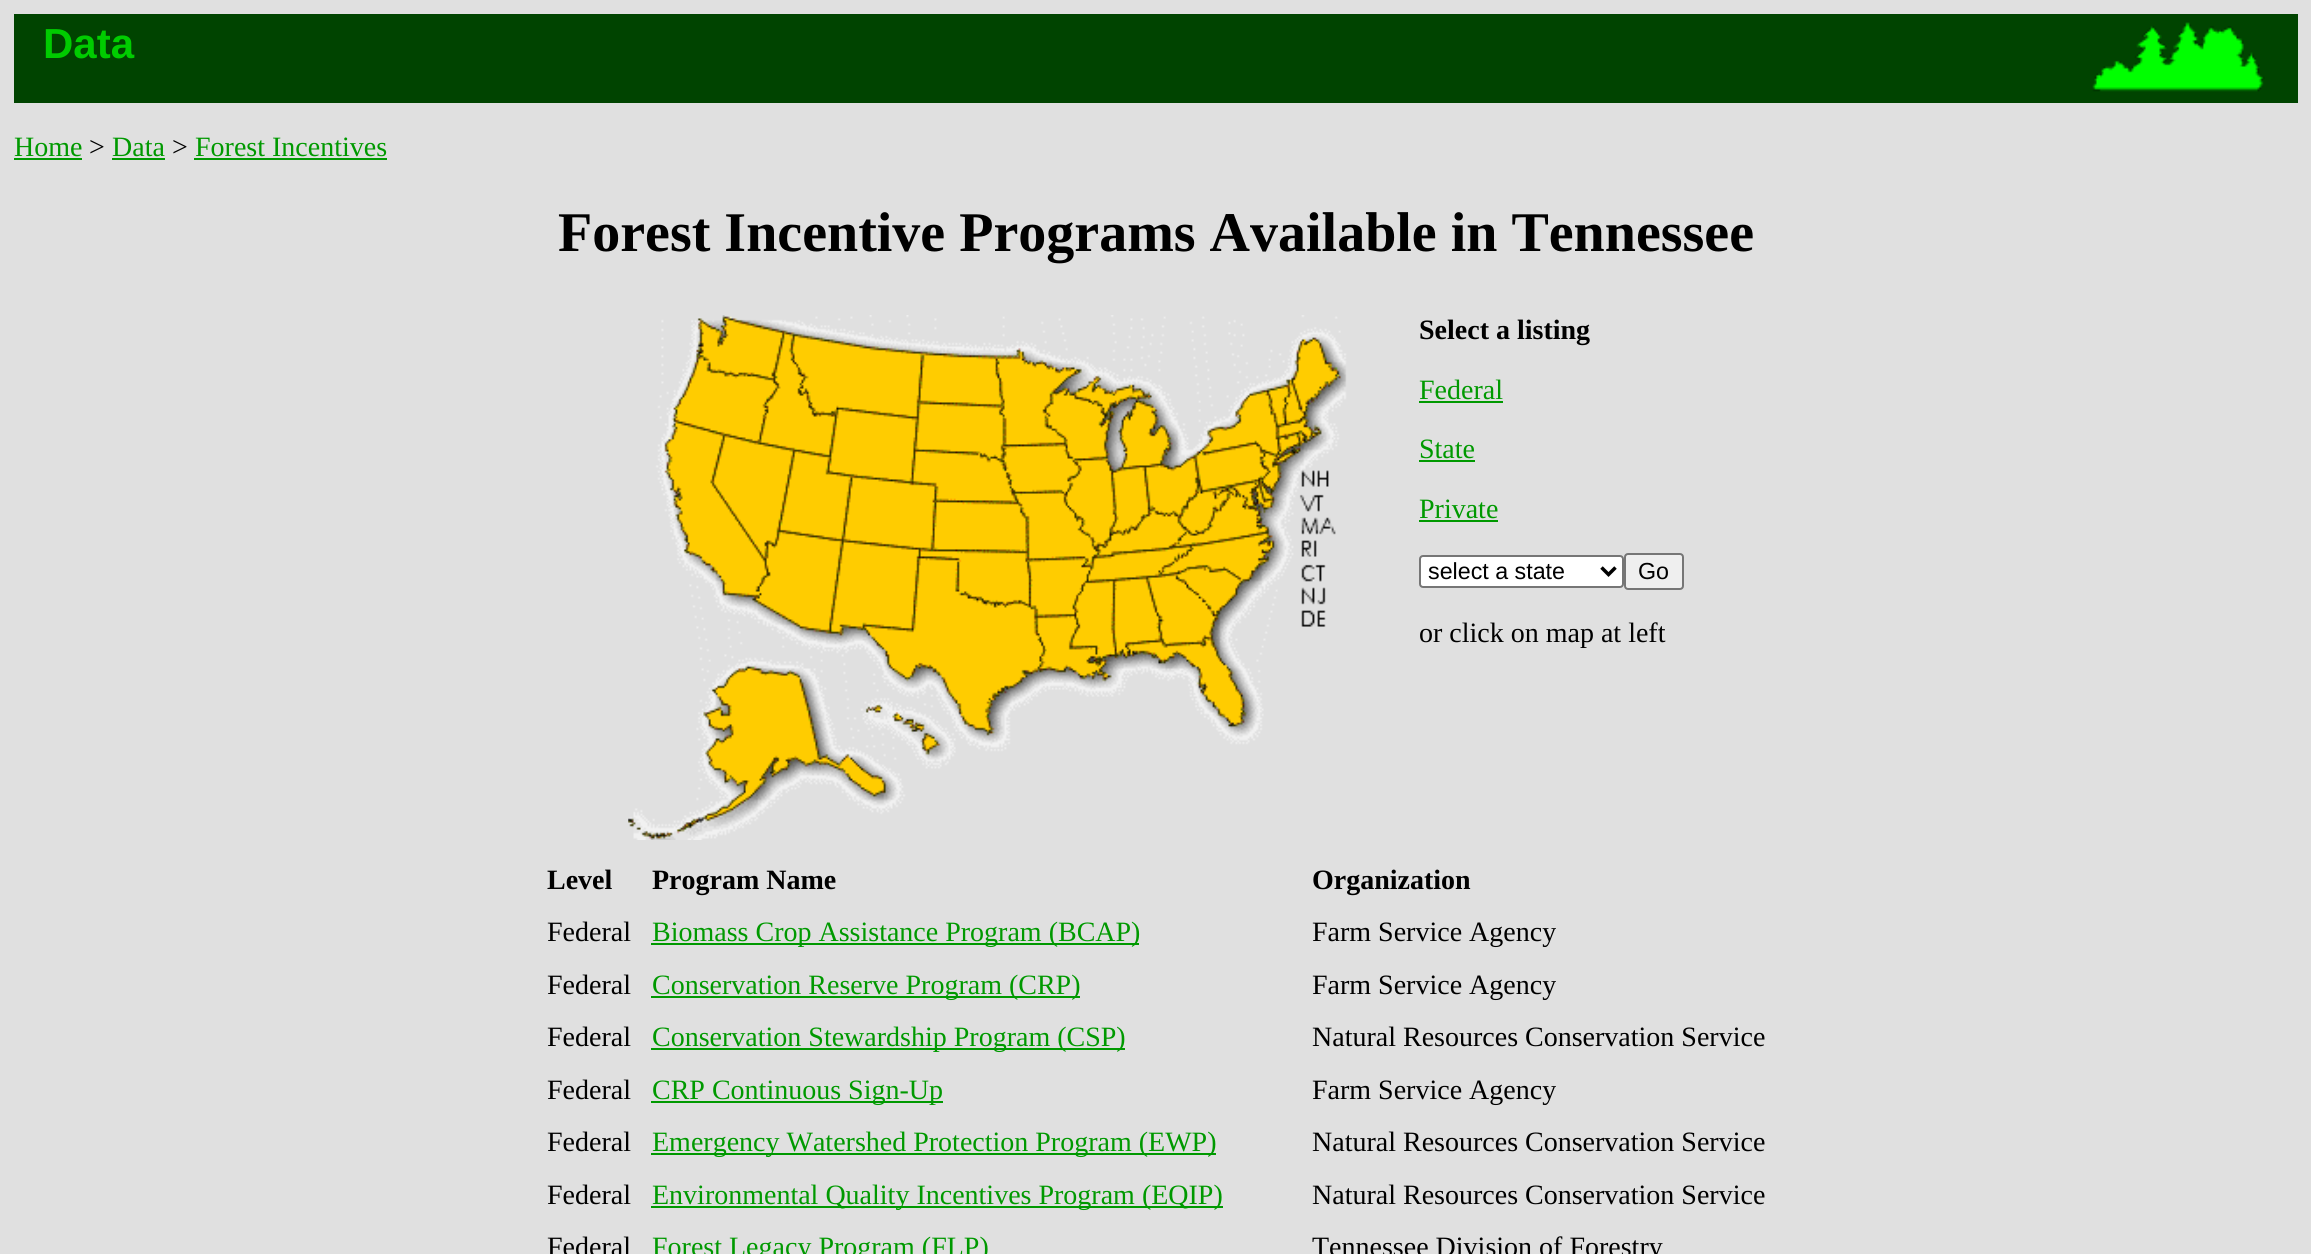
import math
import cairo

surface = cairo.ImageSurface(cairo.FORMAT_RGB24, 2311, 1254)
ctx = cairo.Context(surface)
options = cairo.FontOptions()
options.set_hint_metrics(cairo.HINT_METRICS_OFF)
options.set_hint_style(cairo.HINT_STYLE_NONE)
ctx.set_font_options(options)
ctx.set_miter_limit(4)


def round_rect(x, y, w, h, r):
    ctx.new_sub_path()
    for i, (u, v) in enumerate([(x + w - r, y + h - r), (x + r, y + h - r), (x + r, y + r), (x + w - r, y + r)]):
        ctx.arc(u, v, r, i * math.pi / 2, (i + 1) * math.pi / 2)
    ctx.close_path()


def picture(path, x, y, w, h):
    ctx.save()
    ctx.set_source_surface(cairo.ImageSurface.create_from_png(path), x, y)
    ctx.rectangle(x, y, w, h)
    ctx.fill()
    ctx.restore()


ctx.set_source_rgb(0.878, 0.878, 0.878)
ctx.paint()
ctx.set_source_rgb(0, 0.267, 0)
ctx.rectangle(14, 14, 2284, 89)
ctx.fill()
ctx.select_font_face("Liberation Sans", cairo.FONT_SLANT_NORMAL, cairo.FONT_WEIGHT_BOLD)
ctx.set_font_size(42)
ctx.set_source_rgb(0, 0.8, 0)
ctx.move_to(43, 58)
ctx.show_text("Data")
picture("img1.png", 2092, 22, 173, 70)
ctx.select_font_face("Liberation Serif")
ctx.set_font_size(28)
ctx.set_source_rgb(0, 0.6, 0)
ctx.move_to(14, 156)
ctx.show_text("Home")
ctx.rectangle(14, 158, 68, 2)
ctx.fill()
ctx.set_source_rgb(0, 0, 0)
ctx.move_to(89, 156)
ctx.show_text(">")
ctx.set_source_rgb(0, 0.6, 0)
ctx.move_to(112, 156)
ctx.show_text("Data")
ctx.rectangle(112, 158, 53, 2)
ctx.fill()
ctx.set_source_rgb(0, 0, 0)
ctx.move_to(172, 156)
ctx.show_text(">")
ctx.set_source_rgb(0, 0.6, 0)
ctx.move_to(195, 156)
ctx.show_text("Forest Incentives")
ctx.rectangle(194, 158, 193, 2)
ctx.fill()
ctx.select_font_face("Liberation Serif", cairo.FONT_SLANT_NORMAL, cairo.FONT_WEIGHT_BOLD)
ctx.set_font_size(56)
ctx.set_source_rgb(0, 0, 0)
ctx.move_to(558, 251)
ctx.show_text("Forest Incentive Programs Available in Tennessee")
picture("img2.png", 628, 315, 719, 525)
ctx.set_font_size(28)
ctx.move_to(1419, 339)
ctx.show_text("Select a listing")
ctx.select_font_face("Liberation Serif")
ctx.set_source_rgb(0, 0.6, 0)
ctx.move_to(1419, 399)
ctx.show_text("Federal")
ctx.rectangle(1419, 401, 84, 2)
ctx.fill()
ctx.move_to(1419, 458)
ctx.show_text("State")
ctx.rectangle(1419, 460, 56, 2)
ctx.fill()
ctx.move_to(1419, 518)
ctx.show_text("Private")
ctx.rectangle(1419, 520, 79, 2)
ctx.fill()
ctx.set_source_rgb(1, 1, 1)
round_rect(1420, 556, 203, 31, 3)
ctx.fill_preserve()
ctx.set_source_rgb(0.463, 0.463, 0.463)
ctx.stroke()
ctx.new_path()
ctx.move_to(1601.5, 567.5)
ctx.line_to(1608.5, 574.5)
ctx.line_to(1615.5, 567.5)
ctx.set_source_rgb(0, 0, 0)
ctx.set_line_width(3.5)
ctx.stroke()
ctx.select_font_face("Liberation Sans")
ctx.set_font_size(23.25)
ctx.move_to(1428, 579)
ctx.show_text("select a state")
ctx.set_source_rgb(0.937, 0.937, 0.937)
round_rect(1625, 554, 58, 35, 3)
ctx.fill_preserve()
ctx.set_source_rgb(0.463, 0.463, 0.463)
ctx.set_line_width(2)
ctx.stroke()
ctx.set_source_rgb(0, 0, 0)
ctx.move_to(1638, 579)
ctx.show_text("Go")
ctx.select_font_face("Liberation Serif")
ctx.set_font_size(28)
ctx.move_to(1419, 642)
ctx.show_text("or click on map at left")
ctx.select_font_face("Liberation Serif", cairo.FONT_SLANT_NORMAL, cairo.FONT_WEIGHT_BOLD)
ctx.move_to(547, 889)
ctx.show_text("Level")
ctx.move_to(652, 889)
ctx.show_text("Program Name")
ctx.move_to(1312, 889)
ctx.show_text("Organization")
ctx.select_font_face("Liberation Serif")
ctx.move_to(547, 941)
ctx.show_text("Federal")
ctx.set_source_rgb(0, 0.6, 0)
ctx.rectangle(651, 943, 488, 2)
ctx.fill()
ctx.move_to(652, 941)
ctx.show_text("Biomass Crop Assistance Program (BCAP)")
ctx.set_source_rgb(0, 0, 0)
ctx.move_to(1312, 941)
ctx.show_text("Farm Service Agency")
ctx.move_to(547, 994)
ctx.show_text("Federal")
ctx.set_source_rgb(0, 0.6, 0)
ctx.rectangle(651, 996, 429, 2)
ctx.fill()
ctx.move_to(652, 994)
ctx.show_text("Conservation Reserve Program (CRP)")
ctx.set_source_rgb(0, 0, 0)
ctx.move_to(1312, 994)
ctx.show_text("Farm Service Agency")
ctx.move_to(547, 1046)
ctx.show_text("Federal")
ctx.set_source_rgb(0, 0.6, 0)
ctx.rectangle(651, 1048, 474, 2)
ctx.fill()
ctx.move_to(652, 1046)
ctx.show_text("Conservation Stewardship Program (CSP)")
ctx.set_source_rgb(0, 0, 0)
ctx.move_to(1312, 1046)
ctx.show_text("Natural Resources Conservation Service")
ctx.move_to(547, 1099)
ctx.show_text("Federal")
ctx.set_source_rgb(0, 0.6, 0)
ctx.rectangle(651, 1101, 292, 2)
ctx.fill()
ctx.move_to(652, 1099)
ctx.show_text("CRP Continuous Sign-Up")
ctx.set_source_rgb(0, 0, 0)
ctx.move_to(1312, 1099)
ctx.show_text("Farm Service Agency")
ctx.move_to(547, 1151)
ctx.show_text("Federal")
ctx.set_source_rgb(0, 0.6, 0)
ctx.rectangle(651, 1153, 565, 2)
ctx.fill()
ctx.move_to(652, 1151)
ctx.show_text("Emergency Watershed Protection Program (EWP)")
ctx.set_source_rgb(0, 0, 0)
ctx.move_to(1312, 1151)
ctx.show_text("Natural Resources Conservation Service")
ctx.move_to(547, 1204)
ctx.show_text("Federal")
ctx.set_source_rgb(0, 0.6, 0)
ctx.rectangle(651, 1206, 572, 2)
ctx.fill()
ctx.move_to(652, 1204)
ctx.show_text("Environmental Quality Incentives Program (EQIP)")
ctx.set_source_rgb(0, 0, 0)
ctx.move_to(1312, 1204)
ctx.show_text("Natural Resources Conservation Service")
ctx.move_to(547, 1256)
ctx.show_text("Federal")
ctx.set_source_rgb(0, 0.6, 0)
ctx.move_to(652, 1256)
ctx.show_text("Forest Legacy Program (FLP)")
ctx.set_source_rgb(0, 0, 0)
ctx.move_to(1312, 1256)
ctx.show_text("Tennessee Division of Forestry")
surface.write_to_png("page.png")
